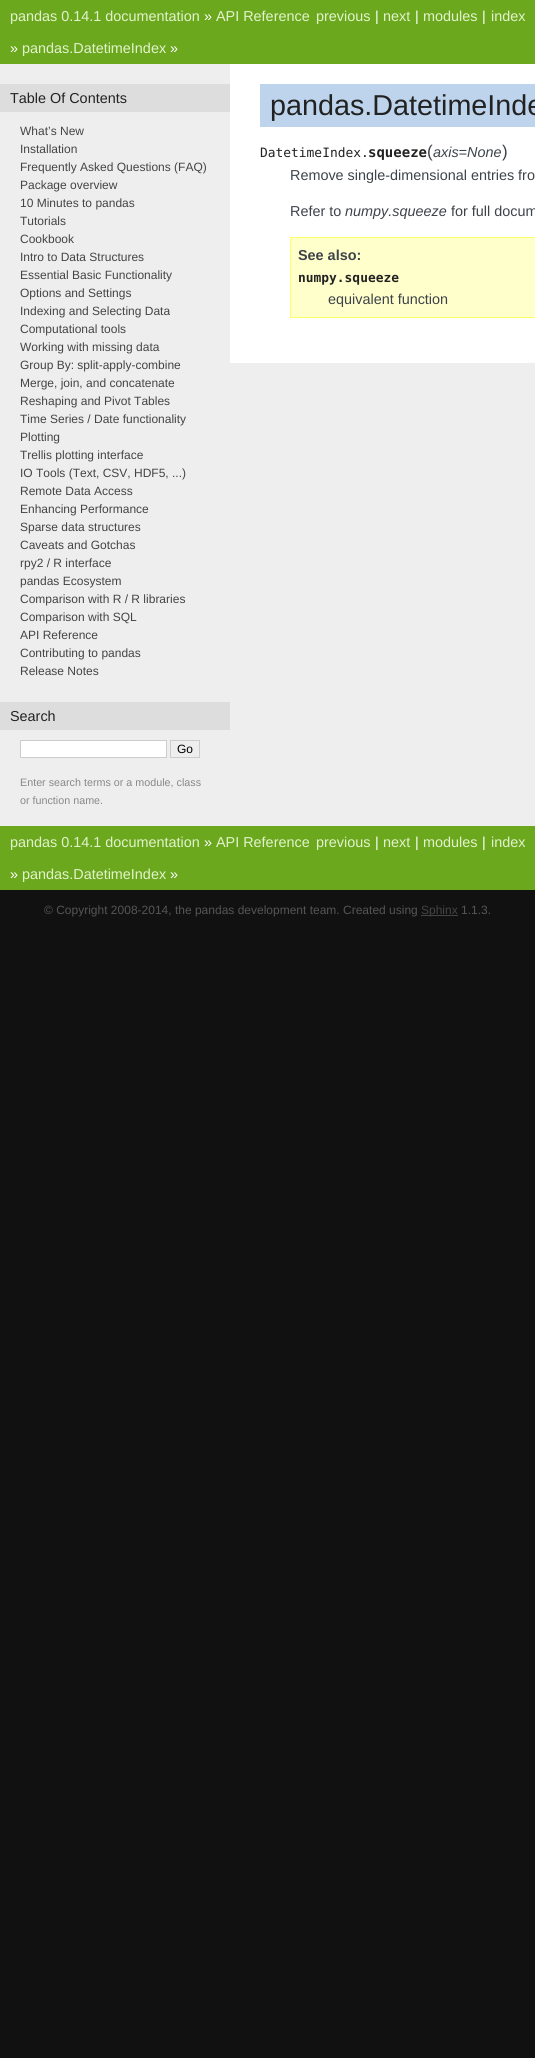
import math
import cairo

surface = cairo.ImageSurface(cairo.FORMAT_RGB24, 535, 2058)
ctx = cairo.Context(surface)
options = cairo.FontOptions()
options.set_hint_metrics(cairo.HINT_METRICS_OFF)
options.set_hint_style(cairo.HINT_STYLE_NONE)
ctx.set_font_options(options)
ctx.set_miter_limit(4)


ctx.set_source_rgb(0.067, 0.067, 0.067)
ctx.paint()
ctx.set_source_rgb(0.42, 0.659, 0.118)
ctx.rectangle(0, 0, 535, 64)
ctx.fill()
ctx.select_font_face("Liberation Sans")
ctx.set_font_size(14.4)
ctx.set_source_rgb(0.886, 0.953, 0.8)
ctx.move_to(10, 21)
ctx.show_text("pandas 0.14.1 documentation")
ctx.set_source_rgb(1, 1, 1)
ctx.move_to(204, 21)
ctx.show_text("»")
ctx.set_source_rgb(0.886, 0.953, 0.8)
ctx.move_to(216, 21)
ctx.show_text("API Reference")
ctx.move_to(316, 21)
ctx.show_text("previous")
ctx.set_source_rgb(1, 1, 1)
ctx.move_to(375, 21)
ctx.show_text("|")
ctx.set_source_rgb(0.886, 0.953, 0.8)
ctx.move_to(383, 21)
ctx.show_text("next")
ctx.set_source_rgb(1, 1, 1)
ctx.move_to(415, 21)
ctx.show_text("|")
ctx.set_source_rgb(0.886, 0.953, 0.8)
ctx.move_to(423, 21)
ctx.show_text("modules")
ctx.set_source_rgb(1, 1, 1)
ctx.move_to(482, 21)
ctx.show_text("|")
ctx.set_source_rgb(0.886, 0.953, 0.8)
ctx.move_to(491, 21)
ctx.show_text("index")
ctx.set_source_rgb(1, 1, 1)
ctx.move_to(10, 53)
ctx.show_text("»")
ctx.set_source_rgb(0.886, 0.953, 0.8)
ctx.move_to(22, 53)
ctx.show_text("pandas.DatetimeIndex")
ctx.set_source_rgb(1, 1, 1)
ctx.move_to(170, 53)
ctx.show_text("»")
ctx.set_source_rgb(0.933, 0.933, 0.933)
ctx.rectangle(0, 64, 535, 762)
ctx.fill()
ctx.set_source_rgb(0.867, 0.867, 0.867)
ctx.rectangle(0, 84, 230, 28)
ctx.fill()
ctx.set_source_rgb(0.133, 0.133, 0.133)
ctx.move_to(10, 103)
ctx.show_text("Table Of Contents")
ctx.set_font_size(12)
ctx.set_source_rgb(0.267, 0.267, 0.267)
ctx.move_to(20, 135)
ctx.show_text("What’s New")
ctx.move_to(20, 153)
ctx.show_text("Installation")
ctx.move_to(20, 171)
ctx.show_text("Frequently Asked Questions (FAQ)")
ctx.move_to(20, 189)
ctx.show_text("Package overview")
ctx.move_to(20, 207)
ctx.show_text("10 Minutes to pandas")
ctx.move_to(20, 225)
ctx.show_text("Tutorials")
ctx.move_to(20, 243)
ctx.show_text("Cookbook")
ctx.move_to(20, 261)
ctx.show_text("Intro to Data Structures")
ctx.move_to(20, 279)
ctx.show_text("Essential Basic Functionality")
ctx.move_to(20, 297)
ctx.show_text("Options and Settings")
ctx.move_to(20, 315)
ctx.show_text("Indexing and Selecting Data")
ctx.move_to(20, 333)
ctx.show_text("Computational tools")
ctx.move_to(20, 351)
ctx.show_text("Working with missing data")
ctx.move_to(20, 369)
ctx.show_text("Group By: split-apply-combine")
ctx.move_to(20, 387)
ctx.show_text("Merge, join, and concatenate")
ctx.move_to(20, 405)
ctx.show_text("Reshaping and Pivot Tables")
ctx.move_to(20, 423)
ctx.show_text("Time Series / Date functionality")
ctx.move_to(20, 441)
ctx.show_text("Plotting")
ctx.move_to(20, 459)
ctx.show_text("Trellis plotting interface")
ctx.move_to(20, 477)
ctx.show_text("IO Tools (Text, CSV, HDF5, ...)")
ctx.move_to(20, 495)
ctx.show_text("Remote Data Access")
ctx.move_to(20, 513)
ctx.show_text("Enhancing Performance")
ctx.move_to(20, 531)
ctx.show_text("Sparse data structures")
ctx.move_to(20, 549)
ctx.show_text("Caveats and Gotchas")
ctx.move_to(20, 567)
ctx.show_text("rpy2 / R interface")
ctx.move_to(20, 585)
ctx.show_text("pandas Ecosystem")
ctx.move_to(20, 603)
ctx.show_text("Comparison with R / R libraries")
ctx.move_to(20, 621)
ctx.show_text("Comparison with SQL")
ctx.move_to(20, 639)
ctx.show_text("API Reference")
ctx.move_to(20, 657)
ctx.show_text("Contributing to pandas")
ctx.move_to(20, 675)
ctx.show_text("Release Notes")
ctx.set_source_rgb(0.867, 0.867, 0.867)
ctx.rectangle(0, 702, 230, 28)
ctx.fill()
ctx.set_font_size(14.4)
ctx.set_source_rgb(0.133, 0.133, 0.133)
ctx.move_to(10, 721)
ctx.show_text("Search")
ctx.set_source_rgb(1, 1, 1)
ctx.rectangle(20.5, 740.5, 146, 17)
ctx.fill_preserve()
ctx.set_source_rgb(0.8, 0.8, 0.8)
ctx.set_line_width(1)
ctx.stroke()
ctx.rectangle(170.5, 740.5, 29, 17)
ctx.stroke()
ctx.set_font_size(12)
ctx.set_source_rgb(0, 0, 0)
ctx.move_to(177, 753)
ctx.show_text("Go")
ctx.set_font_size(10.75)
ctx.set_source_rgb(0.533, 0.533, 0.533)
ctx.move_to(20, 786)
ctx.show_text("Enter search terms or a module, class")
ctx.move_to(20, 804)
ctx.show_text("or function name.")
ctx.set_source_rgb(1, 1, 1)
ctx.rectangle(230, 64, 305, 299)
ctx.fill()
ctx.set_source_rgb(0.745, 0.831, 0.922)
ctx.rectangle(260, 84, 275, 43)
ctx.fill()
ctx.set_font_size(28.75)
ctx.set_source_rgb(0.133, 0.133, 0.133)
ctx.move_to(270, 115)
ctx.show_text("pandas.DatetimeInde")
ctx.select_font_face("DejaVu Sans Mono")
ctx.set_font_size(12.9)
ctx.move_to(260, 157)
ctx.show_text("DatetimeIndex.")
ctx.select_font_face("DejaVu Sans Mono", cairo.FONT_SLANT_NORMAL, cairo.FONT_WEIGHT_BOLD)
ctx.set_font_size(14)
ctx.move_to(368, 157)
ctx.show_text("squeeze")
ctx.select_font_face("Liberation Sans")
ctx.set_font_size(17)
ctx.set_source_rgb(0.243, 0.263, 0.286)
ctx.move_to(427, 157)
ctx.show_text("(")
ctx.select_font_face("Liberation Sans", cairo.FONT_SLANT_ITALIC)
ctx.set_font_size(14.4)
ctx.move_to(433, 157)
ctx.show_text("axis=None")
ctx.select_font_face("Liberation Sans")
ctx.set_font_size(17)
ctx.move_to(502, 157)
ctx.show_text(")")
ctx.set_font_size(14.4)
ctx.move_to(290, 180)
ctx.show_text("Remove single-dimensional entries fro")
ctx.move_to(290, 216)
ctx.show_text("Refer to")
ctx.select_font_face("Liberation Sans", cairo.FONT_SLANT_ITALIC)
ctx.move_to(345, 216)
ctx.show_text("numpy.squeeze")
ctx.select_font_face("Liberation Sans")
ctx.move_to(451, 216)
ctx.show_text("for full docum")
ctx.set_source_rgb(1, 1, 0.8)
ctx.rectangle(290.5, 237.5, 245, 80)
ctx.fill_preserve()
ctx.set_source_rgb(1, 1, 0.4)
ctx.stroke()
ctx.select_font_face("Liberation Sans", cairo.FONT_SLANT_NORMAL, cairo.FONT_WEIGHT_BOLD)
ctx.set_source_rgb(0.243, 0.263, 0.286)
ctx.move_to(298, 260)
ctx.show_text("See also:")
ctx.select_font_face("DejaVu Sans Mono", cairo.FONT_SLANT_NORMAL, cairo.FONT_WEIGHT_BOLD)
ctx.set_font_size(12.9)
ctx.set_source_rgb(0.133, 0.133, 0.133)
ctx.move_to(298, 282)
ctx.show_text("numpy.squeeze")
ctx.select_font_face("Liberation Sans")
ctx.set_font_size(14.4)
ctx.set_source_rgb(0.243, 0.263, 0.286)
ctx.move_to(328, 304)
ctx.show_text("equivalent function")
ctx.set_source_rgb(0.42, 0.659, 0.118)
ctx.rectangle(0, 826, 535, 64)
ctx.fill()
ctx.set_source_rgb(0.886, 0.953, 0.8)
ctx.move_to(10, 847)
ctx.show_text("pandas 0.14.1 documentation")
ctx.set_source_rgb(1, 1, 1)
ctx.move_to(204, 847)
ctx.show_text("»")
ctx.set_source_rgb(0.886, 0.953, 0.8)
ctx.move_to(216, 847)
ctx.show_text("API Reference")
ctx.move_to(316, 847)
ctx.show_text("previous")
ctx.set_source_rgb(1, 1, 1)
ctx.move_to(375, 847)
ctx.show_text("|")
ctx.set_source_rgb(0.886, 0.953, 0.8)
ctx.move_to(383, 847)
ctx.show_text("next")
ctx.set_source_rgb(1, 1, 1)
ctx.move_to(415, 847)
ctx.show_text("|")
ctx.set_source_rgb(0.886, 0.953, 0.8)
ctx.move_to(423, 847)
ctx.show_text("modules")
ctx.set_source_rgb(1, 1, 1)
ctx.move_to(482, 847)
ctx.show_text("|")
ctx.set_source_rgb(0.886, 0.953, 0.8)
ctx.move_to(491, 847)
ctx.show_text("index")
ctx.set_source_rgb(1, 1, 1)
ctx.move_to(10, 879)
ctx.show_text("»")
ctx.set_source_rgb(0.886, 0.953, 0.8)
ctx.move_to(22, 879)
ctx.show_text("pandas.DatetimeIndex")
ctx.set_source_rgb(1, 1, 1)
ctx.move_to(170, 879)
ctx.show_text("»")
ctx.set_font_size(12)
ctx.set_source_rgb(0.333, 0.333, 0.333)
ctx.move_to(44, 914)
ctx.show_text("© Copyright 2008-2014, the pandas development team. Created using")
ctx.set_source_rgb(0.267, 0.267, 0.267)
ctx.rectangle(421, 915, 37, 1)
ctx.fill()
ctx.move_to(421, 914)
ctx.show_text("Sphinx")
ctx.set_source_rgb(0.333, 0.333, 0.333)
ctx.move_to(461, 914)
ctx.show_text("1.1.3.")
surface.write_to_png("page.png")
